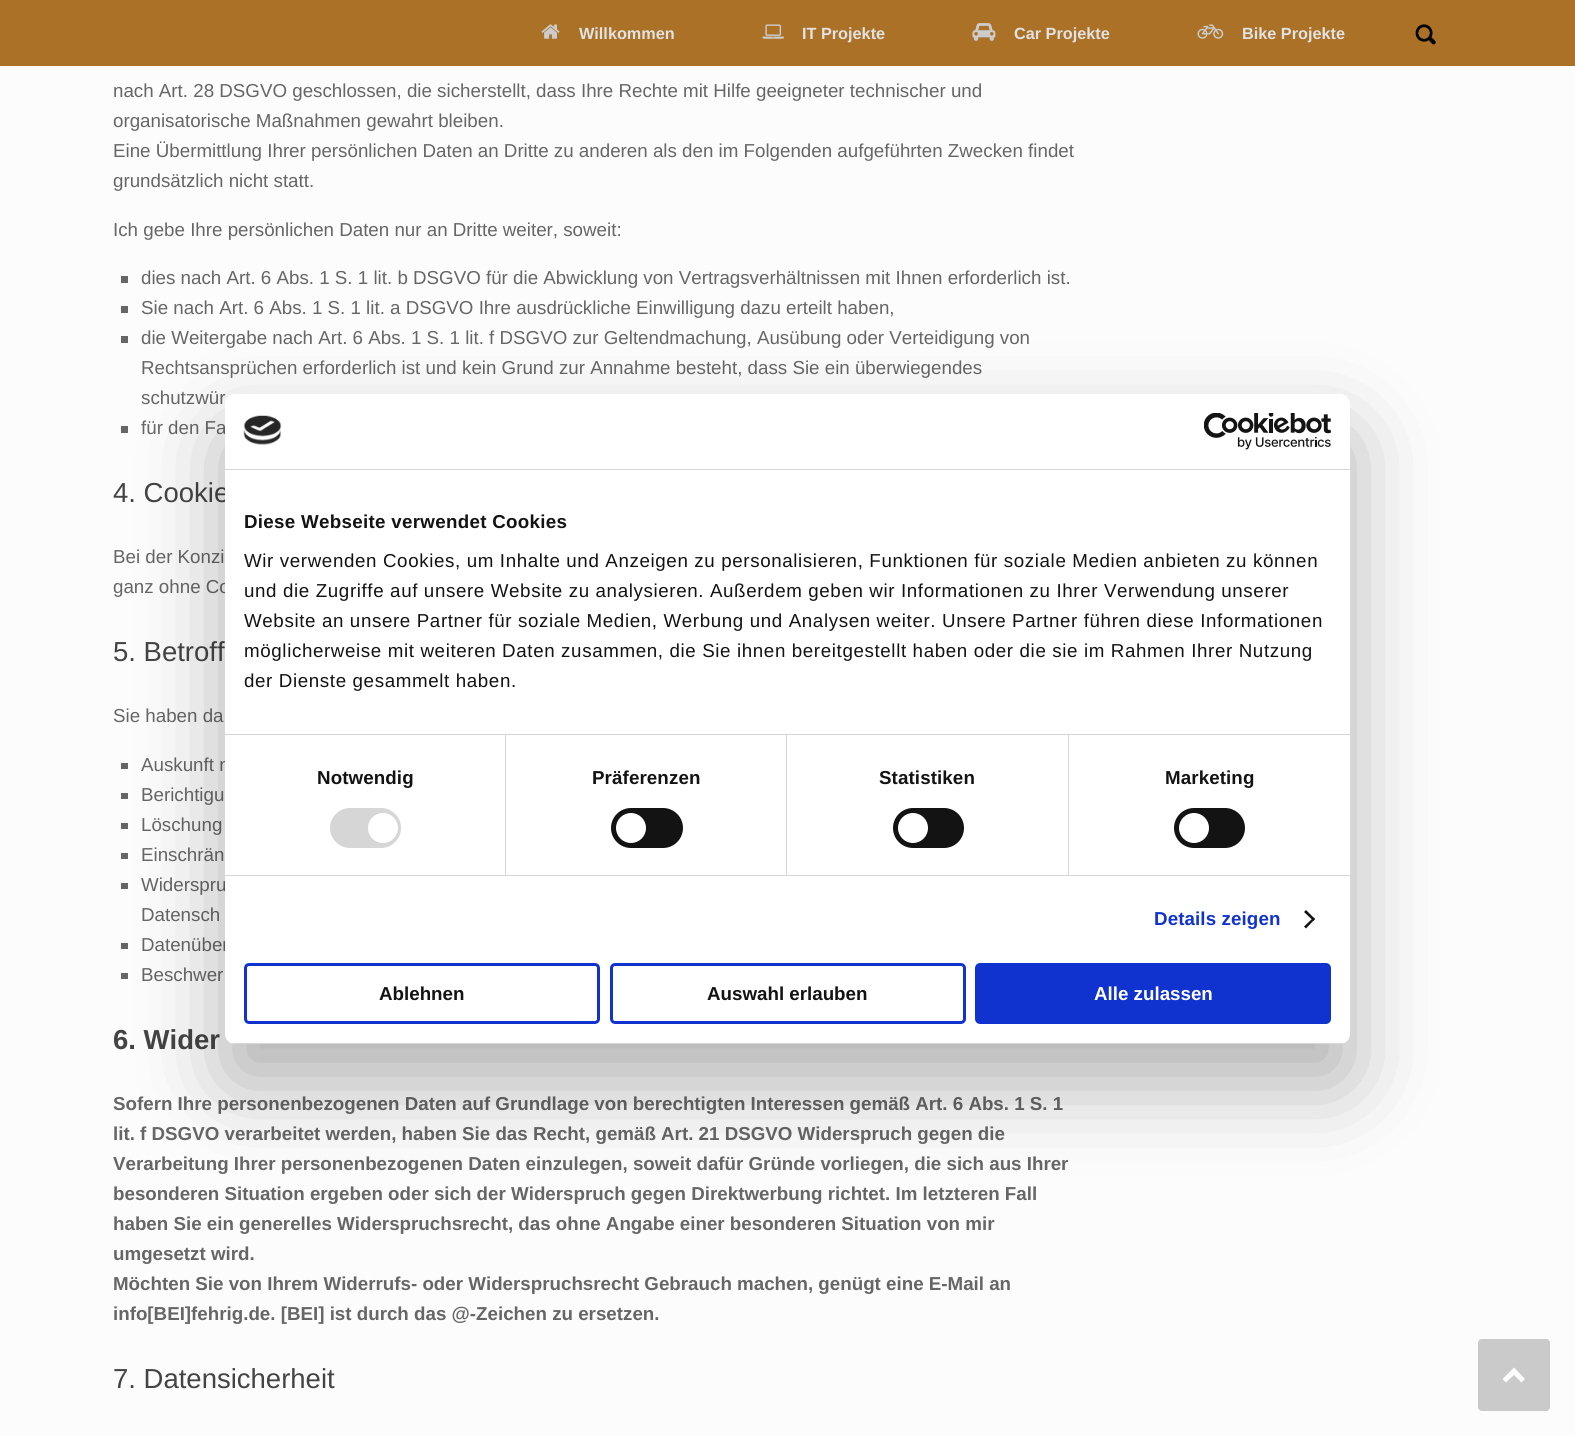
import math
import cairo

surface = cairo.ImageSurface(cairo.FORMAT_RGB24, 1575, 1436)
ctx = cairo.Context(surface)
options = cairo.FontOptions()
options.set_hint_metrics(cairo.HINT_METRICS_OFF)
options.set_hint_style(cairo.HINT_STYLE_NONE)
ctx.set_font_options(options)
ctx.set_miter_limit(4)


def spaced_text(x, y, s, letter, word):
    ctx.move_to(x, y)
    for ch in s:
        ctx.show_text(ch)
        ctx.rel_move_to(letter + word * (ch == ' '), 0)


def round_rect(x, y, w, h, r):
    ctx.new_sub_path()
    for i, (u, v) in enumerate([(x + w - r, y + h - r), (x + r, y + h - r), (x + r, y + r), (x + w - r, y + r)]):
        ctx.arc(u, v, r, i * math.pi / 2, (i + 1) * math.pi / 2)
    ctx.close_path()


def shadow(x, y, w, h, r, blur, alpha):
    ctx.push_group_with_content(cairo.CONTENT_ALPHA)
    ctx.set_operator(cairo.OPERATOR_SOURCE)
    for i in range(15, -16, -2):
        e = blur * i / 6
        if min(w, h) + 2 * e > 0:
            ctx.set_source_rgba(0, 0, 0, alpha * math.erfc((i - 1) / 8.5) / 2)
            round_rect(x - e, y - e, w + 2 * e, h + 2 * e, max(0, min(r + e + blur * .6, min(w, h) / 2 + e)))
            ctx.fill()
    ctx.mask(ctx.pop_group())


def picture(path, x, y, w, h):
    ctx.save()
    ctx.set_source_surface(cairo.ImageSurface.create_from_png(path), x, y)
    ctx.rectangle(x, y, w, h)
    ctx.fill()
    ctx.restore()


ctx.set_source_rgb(0.988, 0.988, 0.988)
ctx.paint()
ctx.set_source_rgb(0.667, 0.443, 0.153)
ctx.rectangle(0, 0, 1575, 66)
ctx.fill()
picture("img1.png", 541, 24, 19, 15)
ctx.select_font_face("Liberation Sans", cairo.FONT_SLANT_NORMAL, cairo.FONT_WEIGHT_BOLD)
ctx.set_font_size(16.25)
ctx.set_source_rgb(0.886, 0.886, 0.886)
ctx.move_to(579, 39)
ctx.show_text("Willkommen")
picture("img2.png", 762, 24, 22, 15)
ctx.move_to(802, 39)
ctx.show_text("IT Projekte")
picture("img3.png", 972, 23, 24, 18)
ctx.move_to(1014, 39)
ctx.show_text("Car Projekte")
picture("img4.png", 1197, 24, 27, 15)
ctx.move_to(1242, 39)
ctx.show_text("Bike Projekte")
picture("img5.png", 1415, 24, 21, 21)
ctx.select_font_face("Liberation Sans")
ctx.set_font_size(18.75)
ctx.set_source_rgb(0.4, 0.4, 0.4)
ctx.move_to(113, 97)
ctx.show_text("nach Art. 28 DSGVO geschlossen, die sicherstellt, dass Ihre Rechte mit Hilfe geeigneter technischer und")
ctx.move_to(113, 127)
ctx.show_text("organisatorische Maßnahmen gewahrt bleiben.")
ctx.move_to(113, 157)
ctx.show_text("Eine Übermittlung Ihrer persönlichen Daten an Dritte zu anderen als den im Folgenden aufgeführten Zwecken findet")
ctx.move_to(113, 187)
ctx.show_text("grundsätzlich nicht statt.")
ctx.move_to(113, 236)
ctx.show_text("Ich gebe Ihre persönlichen Daten nur an Dritte weiter, soweit:")
ctx.rectangle(121, 276, 7, 7)
ctx.fill()
ctx.move_to(141, 284)
ctx.show_text("dies nach Art. 6 Abs. 1 S. 1 lit. b DSGVO für die Abwicklung von Vertragsverhältnissen mit Ihnen erforderlich ist.")
ctx.rectangle(121, 306, 7, 7)
ctx.fill()
ctx.move_to(141, 314)
ctx.show_text("Sie nach Art. 6 Abs. 1 S. 1 lit. a DSGVO Ihre ausdrückliche Einwilligung dazu erteilt haben,")
ctx.rectangle(121, 336, 7, 7)
ctx.fill()
ctx.move_to(141, 344)
ctx.show_text("die Weitergabe nach Art. 6 Abs. 1 S. 1 lit. f DSGVO zur Geltendmachung, Ausübung oder Verteidigung von")
ctx.move_to(141, 374)
ctx.show_text("Rechtsansprüchen erforderlich ist und kein Grund zur Annahme besteht, dass Sie ein überwiegendes")
ctx.move_to(141, 404)
ctx.show_text("schutzwür")
ctx.rectangle(121, 426, 7, 7)
ctx.fill()
ctx.move_to(141, 434)
ctx.show_text("für den Fa")
ctx.set_font_size(27.5)
ctx.set_source_rgb(0.267, 0.267, 0.267)
ctx.move_to(113, 502)
ctx.show_text("4. Cookie")
ctx.set_font_size(18.75)
ctx.set_source_rgb(0.4, 0.4, 0.4)
ctx.move_to(113, 563)
ctx.show_text("Bei der Konzi")
ctx.move_to(113, 593)
ctx.show_text("ganz ohne Co")
ctx.set_font_size(27.5)
ctx.set_source_rgb(0.267, 0.267, 0.267)
ctx.move_to(113, 661)
ctx.show_text("5. Betroff")
ctx.set_font_size(18.75)
ctx.set_source_rgb(0.4, 0.4, 0.4)
ctx.move_to(113, 722)
ctx.show_text("Sie haben da")
ctx.rectangle(121, 763, 7, 6)
ctx.fill()
ctx.move_to(141, 771)
ctx.show_text("Auskunft n")
ctx.rectangle(121, 793, 7, 6)
ctx.fill()
ctx.move_to(141, 801)
ctx.show_text("Berichtigu")
ctx.rectangle(121, 823, 7, 6)
ctx.fill()
ctx.move_to(141, 831)
ctx.show_text("Löschung")
ctx.rectangle(121, 853, 7, 6)
ctx.fill()
ctx.move_to(141, 861)
ctx.show_text("Einschrän")
ctx.rectangle(121, 883, 7, 6)
ctx.fill()
ctx.move_to(141, 891)
ctx.show_text("Widerspru")
ctx.move_to(141, 921)
ctx.show_text("Datensch")
ctx.rectangle(121, 943, 7, 6)
ctx.fill()
ctx.move_to(141, 951)
ctx.show_text("Datenüber")
ctx.rectangle(121, 973, 7, 6)
ctx.fill()
ctx.move_to(141, 981)
ctx.show_text("Beschwer")
ctx.select_font_face("Liberation Sans", cairo.FONT_SLANT_NORMAL, cairo.FONT_WEIGHT_BOLD)
ctx.set_font_size(27.5)
ctx.set_source_rgb(0.267, 0.267, 0.267)
ctx.move_to(113, 1049)
ctx.show_text("6. Wider")
ctx.set_font_size(18.75)
ctx.set_source_rgb(0.4, 0.4, 0.4)
ctx.move_to(113, 1110)
ctx.show_text("Sofern Ihre personenbezogenen Daten auf Grundlage von berechtigten Interessen gemäß Art. 6 Abs. 1 S. 1")
ctx.move_to(113, 1140)
ctx.show_text("lit. f DSGVO verarbeitet werden, haben Sie das Recht, gemäß Art. 21 DSGVO Widerspruch gegen die")
ctx.move_to(113, 1170)
ctx.show_text("Verarbeitung Ihrer personenbezogenen Daten einzulegen, soweit dafür Gründe vorliegen, die sich aus Ihrer")
ctx.move_to(113, 1200)
ctx.show_text("besonderen Situation ergeben oder sich der Widerspruch gegen Direktwerbung richtet. Im letzteren Fall")
ctx.move_to(113, 1230)
ctx.show_text("haben Sie ein generelles Widerspruchsrecht, das ohne Angabe einer besonderen Situation von mir")
ctx.move_to(113, 1260)
ctx.show_text("umgesetzt wird.")
ctx.move_to(113, 1290)
ctx.show_text("Möchten Sie von Ihrem Widerrufs- oder Widerspruchsrecht Gebrauch machen, genügt eine E-Mail an")
ctx.move_to(113, 1320)
ctx.show_text("info[BEI]fehrig.de. [BEI] ist durch das @-Zeichen zu ersetzen.")
ctx.select_font_face("Liberation Sans")
ctx.set_font_size(27.5)
ctx.set_source_rgb(0.267, 0.267, 0.267)
ctx.move_to(113, 1388)
ctx.show_text("7. Datensicherheit")
ctx.set_source_rgb(0, 0, 0)
shadow(225, 434, 1125, 650, 10, 42.5, 0.3)
ctx.set_source_rgb(1, 1, 1)
round_rect(225, 394, 1125, 650, 10)
ctx.fill()
ctx.set_source_rgb(0.839, 0.839, 0.839)
ctx.rectangle(225, 469, 1125, 1)
ctx.fill()
picture("img6.png", 243, 415, 39, 30)
picture("img7.png", 1204, 413, 127, 37)
ctx.rectangle(225, 734, 1125, 1)
ctx.fill()
ctx.select_font_face("Liberation Sans", cairo.FONT_SLANT_NORMAL, cairo.FONT_WEIGHT_BOLD)
ctx.set_font_size(18.75)
ctx.set_source_rgb(0.078, 0.078, 0.078)
spaced_text(244, 528, "Diese Webseite verwendet Cookies", 0.3, 0)
ctx.select_font_face("Liberation Sans")
spaced_text(244, 567, "Wir verwenden Cookies, um Inhalte und Anzeigen zu personalisieren, Funktionen für soziale Medien anbieten zu können", 0.62, 0)
spaced_text(244, 597, "und die Zugriffe auf unsere Website zu analysieren. Außerdem geben wir Informationen zu Ihrer Verwendung unserer", 0.62, 0)
spaced_text(244, 627, "Website an unsere Partner für soziale Medien, Werbung und Analysen weiter. Unsere Partner führen diese Informationen", 0.62, 0)
spaced_text(244, 657, "möglicherweise mit weiteren Daten zusammen, die Sie ihnen bereitgestellt haben oder die sie im Rahmen Ihrer Nutzung", 0.62, 0)
spaced_text(244, 687, "der Dienste gesammelt haben.", 0.62, 0)
ctx.set_source_rgb(0.839, 0.839, 0.839)
ctx.rectangle(225, 875, 1125, 1)
ctx.fill()
ctx.rectangle(505, 735, 1, 140)
ctx.fill()
ctx.select_font_face("Liberation Sans", cairo.FONT_SLANT_NORMAL, cairo.FONT_WEIGHT_BOLD)
ctx.set_source_rgb(0.078, 0.078, 0.078)
spaced_text(317, 784, "Notwendig", 0.1, 0)
ctx.set_source_rgb(0.839, 0.839, 0.839)
round_rect(330, 808, 71, 40, 20)
ctx.fill()
ctx.set_source_rgb(1, 1, 1)
ctx.arc(383, 828, 15, 0, 2 * math.pi)
ctx.fill()
ctx.set_source_rgb(0.839, 0.839, 0.839)
ctx.rectangle(786, 735, 1, 140)
ctx.fill()
ctx.set_source_rgb(0.078, 0.078, 0.078)
spaced_text(592, 784, "Präferenzen", 0.1, 0)
round_rect(611, 808, 72, 40, 20)
ctx.fill()
ctx.set_source_rgb(1, 1, 1)
ctx.arc(631, 828, 15, 0, 2 * math.pi)
ctx.fill()
ctx.set_source_rgb(0.839, 0.839, 0.839)
ctx.rectangle(1068, 735, 1, 140)
ctx.fill()
ctx.set_source_rgb(0.078, 0.078, 0.078)
spaced_text(879, 784, "Statistiken", 0.1, 0)
round_rect(893, 808, 71, 40, 20)
ctx.fill()
ctx.set_source_rgb(1, 1, 1)
ctx.arc(913, 828, 15, 0, 2 * math.pi)
ctx.fill()
ctx.set_source_rgb(0.078, 0.078, 0.078)
spaced_text(1165, 784, "Marketing", 0.1, 0)
round_rect(1174, 808, 71, 40, 20)
ctx.fill()
ctx.set_source_rgb(1, 1, 1)
ctx.arc(1194, 828, 15, 0, 2 * math.pi)
ctx.fill()
ctx.set_source_rgb(0.063, 0.196, 0.812)
spaced_text(1154, 925, "Details zeigen", 0.1, 0)
ctx.set_source_rgb(0.078, 0.078, 0.078)
ctx.new_path()
ctx.move_to(1306, 910)
ctx.line_to(1315, 919)
ctx.line_to(1313.5, 921)
ctx.line_to(1304, 912)
ctx.close_path()
ctx.fill()
ctx.new_path()
ctx.move_to(1313.5, 917.5)
ctx.line_to(1315, 919)
ctx.line_to(1306, 928.5)
ctx.line_to(1304, 926.5)
ctx.close_path()
ctx.fill()
ctx.save()
round_rect(225, 394, 1125, 650, 10)
ctx.clip()
ctx.set_source_rgb(0.839, 0.839, 0.839)
ctx.rectangle(225, 1043, 1125, 1)
ctx.fill()
ctx.restore()
round_rect(245.5, 964.5, 353, 58, 3.5)
ctx.set_source_rgb(0.063, 0.196, 0.812)
ctx.set_line_width(3)
ctx.stroke()
ctx.set_source_rgb(0.078, 0.078, 0.078)
ctx.move_to(379, 1000)
ctx.show_text("Ablehnen")
round_rect(611.5, 964.5, 353, 58, 3.5)
ctx.set_source_rgb(0.063, 0.196, 0.812)
ctx.stroke()
ctx.set_source_rgb(0.078, 0.078, 0.078)
ctx.move_to(707, 1000)
ctx.show_text("Auswahl erlauben")
ctx.set_source_rgb(0.063, 0.196, 0.812)
round_rect(976.5, 964.5, 353, 58, 3.5)
ctx.fill_preserve()
ctx.stroke()
ctx.set_source_rgb(1, 1, 1)
ctx.move_to(1094, 1000)
ctx.show_text("Alle zulassen")
ctx.set_source_rgb(0.792, 0.792, 0.792)
round_rect(1478, 1339, 72, 72, 4)
ctx.fill()
ctx.set_source_rgb(0.992, 0.992, 0.992)
ctx.new_path()
ctx.move_to(1525, 1379)
ctx.line_to(1514, 1367.5)
ctx.line_to(1502.5, 1379)
ctx.line_to(1506, 1382.5)
ctx.line_to(1514, 1375)
ctx.line_to(1521.5, 1382.5)
ctx.close_path()
ctx.fill()
surface.write_to_png("page.png")
